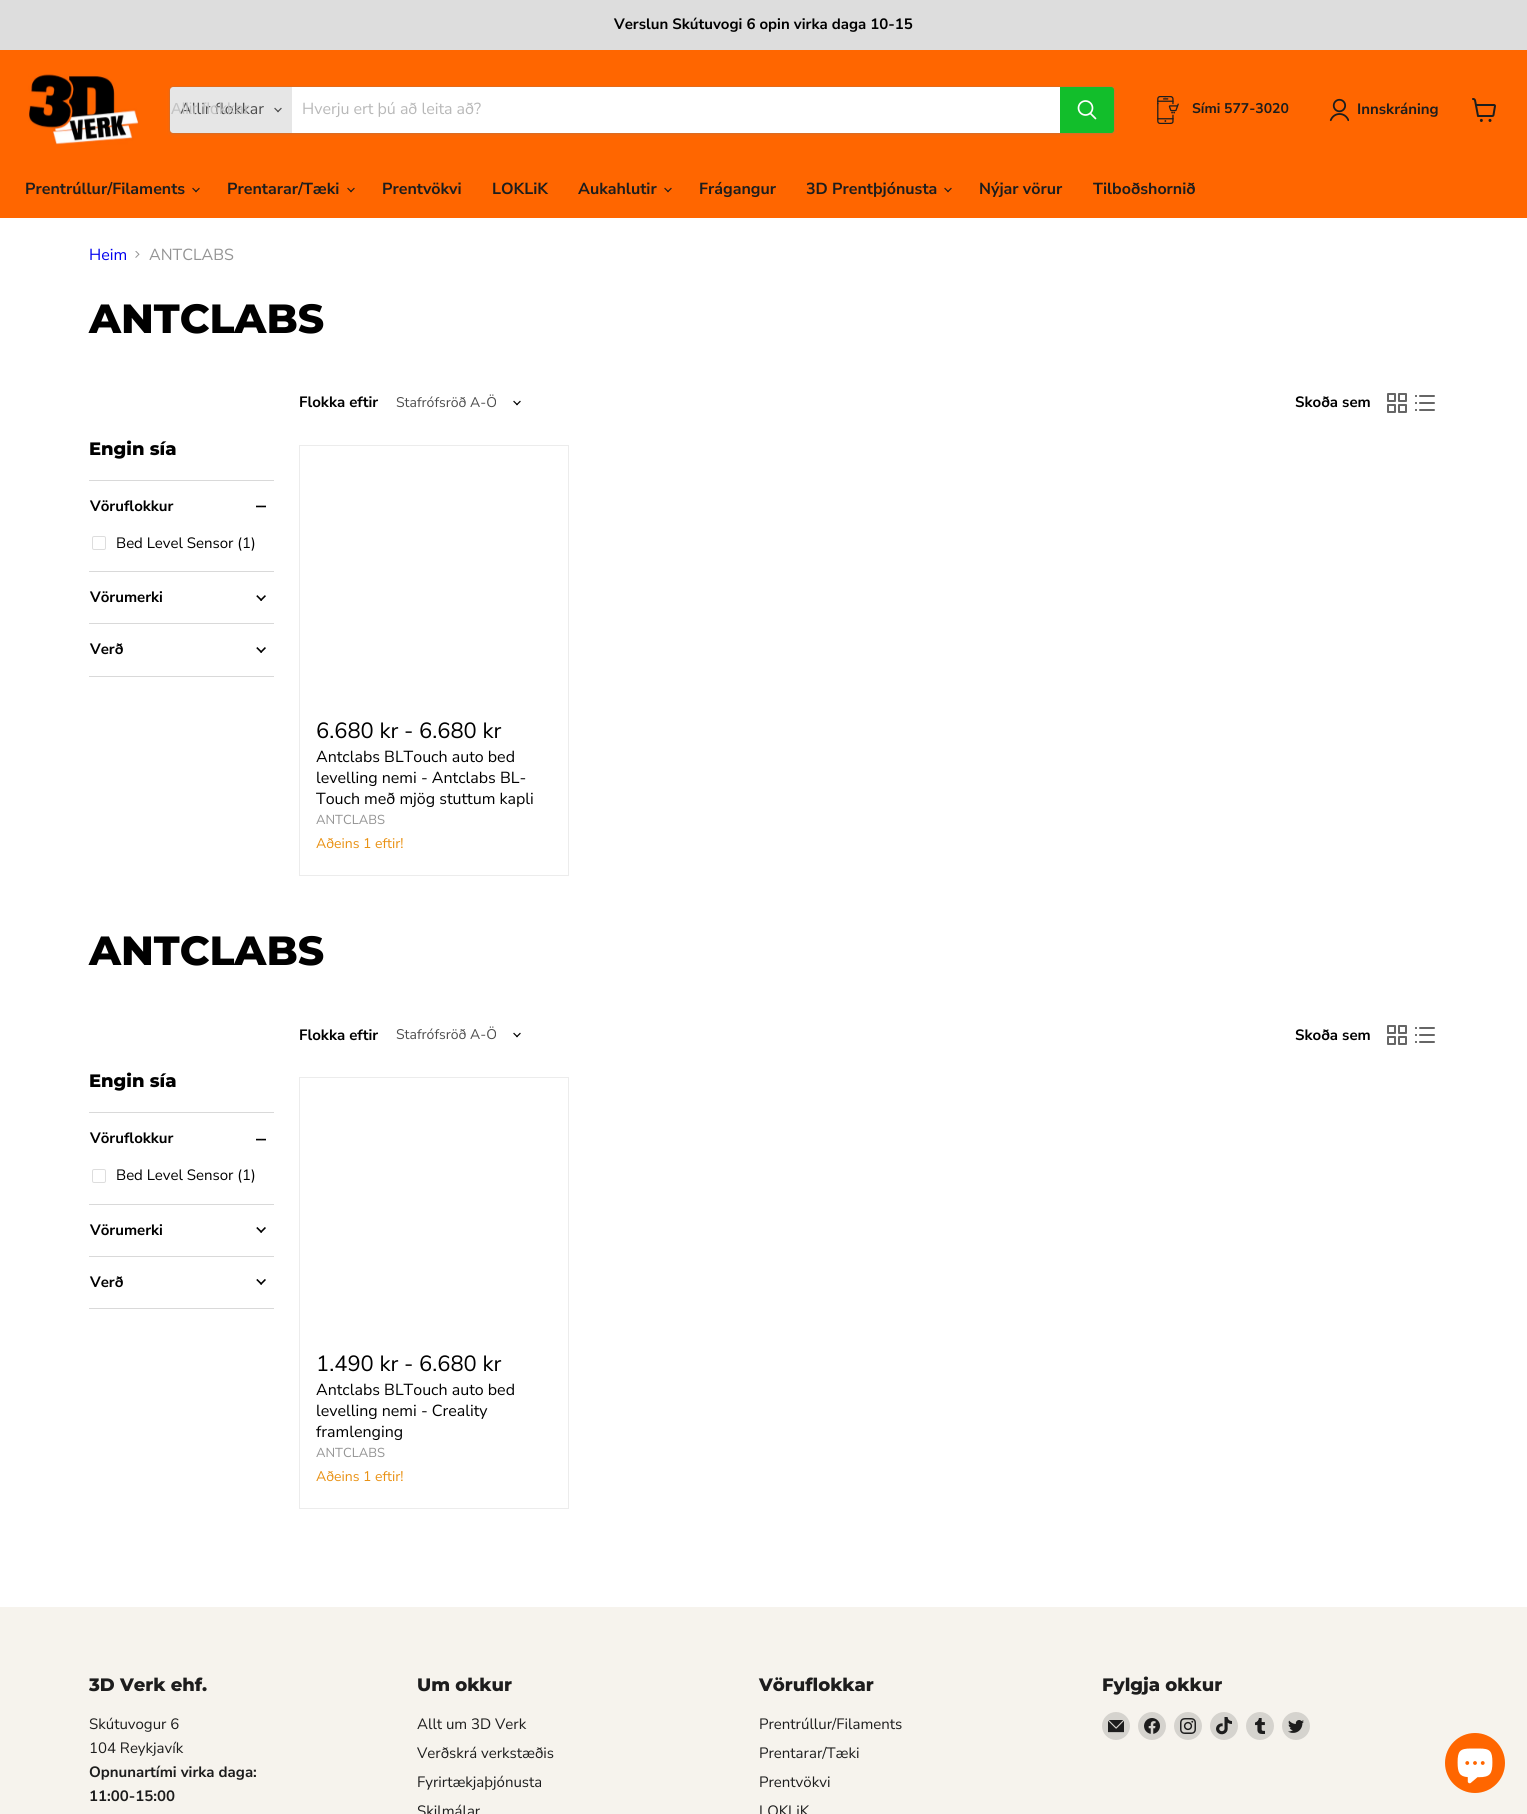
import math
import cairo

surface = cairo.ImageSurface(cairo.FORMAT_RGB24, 1527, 1814)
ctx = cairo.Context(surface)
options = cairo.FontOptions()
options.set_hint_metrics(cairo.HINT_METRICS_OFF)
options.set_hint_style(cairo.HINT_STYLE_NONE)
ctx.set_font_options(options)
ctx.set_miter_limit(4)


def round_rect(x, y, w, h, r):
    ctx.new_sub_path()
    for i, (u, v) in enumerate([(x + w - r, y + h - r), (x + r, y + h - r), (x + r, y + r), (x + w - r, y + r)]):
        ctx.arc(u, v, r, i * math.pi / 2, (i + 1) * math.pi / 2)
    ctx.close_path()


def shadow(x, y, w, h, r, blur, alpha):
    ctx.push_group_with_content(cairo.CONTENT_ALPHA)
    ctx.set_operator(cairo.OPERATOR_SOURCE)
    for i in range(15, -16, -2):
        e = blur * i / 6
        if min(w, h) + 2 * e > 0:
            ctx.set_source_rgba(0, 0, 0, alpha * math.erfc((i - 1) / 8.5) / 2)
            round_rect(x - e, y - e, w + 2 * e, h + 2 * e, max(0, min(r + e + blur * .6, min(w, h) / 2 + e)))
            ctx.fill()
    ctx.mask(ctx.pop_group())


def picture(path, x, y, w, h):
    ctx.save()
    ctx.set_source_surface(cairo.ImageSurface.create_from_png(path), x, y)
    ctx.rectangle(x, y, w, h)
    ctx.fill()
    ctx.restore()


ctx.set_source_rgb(1, 1, 1)
ctx.paint()
ctx.set_source_rgb(0.867, 0.867, 0.867)
ctx.rectangle(0, 0, 1527, 50)
ctx.fill()
ctx.select_font_face("Nunito Sans", cairo.FONT_SLANT_NORMAL, cairo.FONT_WEIGHT_BOLD)
ctx.set_font_size(15)
ctx.set_source_rgb(0, 0, 0)
ctx.move_to(614, 29)
ctx.show_text("Verslun Skútuvogi 6 opin virka daga 10-15")
ctx.set_source_rgb(1, 0.4, 0)
ctx.rectangle(0, 50, 1527, 168)
ctx.fill()
picture("img1.png", 28, 74, 111, 71)
ctx.set_source_rgb(0.502, 0.502, 0.502)
shadow(169, 88, 946, 48, 4, 1.5, 0.11)
round_rect(169.5, 86.5, 945, 47, 3.5)
ctx.set_source_rgba(0.502, 0.502, 0.502, 0.2)
ctx.set_line_width(1)
ctx.stroke()
ctx.set_source_rgb(0.902, 0.902, 0.902)
ctx.new_path()
ctx.move_to(173, 87)
ctx.line_to(292, 87)
ctx.line_to(292, 133)
ctx.line_to(173, 133)
ctx.curve_to(171.5, 133, 170, 131.5, 170, 130)
ctx.line_to(170, 90)
ctx.curve_to(170, 88.5, 171.5, 87, 173, 87)
ctx.close_path()
ctx.fill()
ctx.select_font_face("Nunito Sans")
ctx.set_font_size(16)
ctx.set_source_rgb(0.302, 0.302, 0.302)
ctx.move_to(180, 114)
ctx.show_text("Allir flokkar")
ctx.select_font_face("Liberation Sans")
ctx.set_source_rgb(0.765, 0.765, 0.765)
ctx.move_to(171, 114)
ctx.show_text("Allir flokkar")
picture("img2.png", 274, 107, 8, 6)
ctx.set_source_rgb(1, 1, 1)
ctx.rectangle(292, 87, 768, 46)
ctx.fill()
ctx.select_font_face("Nunito Sans")
ctx.set_source_rgb(0.722, 0.722, 0.722)
ctx.move_to(302, 114)
ctx.show_text("Hverju ert þú að leita að?")
ctx.set_source_rgb(0.071, 0.745, 0.169)
ctx.new_path()
ctx.move_to(1060.5, 87.5)
ctx.line_to(1111, 87.5)
ctx.curve_to(1112.5, 87.5, 1113.5, 88.5, 1113.5, 90)
ctx.line_to(1113.5, 130)
ctx.curve_to(1113.5, 131.5, 1112.5, 132.5, 1111, 132.5)
ctx.line_to(1060.5, 132.5)
ctx.close_path()
ctx.fill_preserve()
ctx.stroke()
ctx.new_path()
ctx.move_to(1095.5, 118.5)
ctx.line_to(1090.5, 113.5)
ctx.set_source_rgb(1, 1, 1)
ctx.set_line_width(1.7)
ctx.set_line_cap(cairo.LINE_CAP_ROUND)
ctx.stroke()
ctx.arc(1085.5, 108, 7, 0, 2 * math.pi)
ctx.set_line_cap(cairo.LINE_CAP_BUTT)
ctx.stroke()
picture("img3.png", 1157, 96, 22, 28)
ctx.select_font_face("Nunito Sans", cairo.FONT_SLANT_NORMAL, cairo.FONT_WEIGHT_BOLD)
ctx.set_font_size(14)
ctx.set_source_rgb(0.114, 0.114, 0.114)
ctx.move_to(1192, 113)
ctx.show_text("Sími 577-3020")
picture("img4.png", 1329, 98, 20, 24)
ctx.set_font_size(15)
ctx.move_to(1357, 114)
ctx.show_text("Innskráning")
picture("img5.png", 1472, 98, 24, 24)
ctx.set_font_size(16)
ctx.move_to(25, 194)
ctx.show_text("Prentrúllur/Filaments")
picture("img6.png", 192, 187, 8, 6)
ctx.move_to(227, 194)
ctx.show_text("Prentarar/Tæki")
picture("img6.png", 347, 187, 8, 6)
ctx.move_to(382, 194)
ctx.show_text("Prentvökvi")
ctx.move_to(492, 194)
ctx.show_text("LOKLiK")
ctx.move_to(578, 194)
ctx.show_text("Aukahlutir")
picture("img6.png", 664, 187, 8, 6)
ctx.move_to(699, 194)
ctx.show_text("Frágangur")
ctx.move_to(806, 194)
ctx.show_text("3D Prentþjónusta")
picture("img6.png", 944, 187, 8, 6)
ctx.move_to(979, 194)
ctx.show_text("Nýjar vörur")
ctx.move_to(1093, 194)
ctx.show_text("Tilboðshornið")
ctx.select_font_face("Nunito Sans")
ctx.set_source_rgb(0, 0, 0.933)
ctx.move_to(89, 260)
ctx.show_text("Heim")
picture("img7.png", 135, 251, 5, 7)
ctx.set_source_rgb(0.58, 0.58, 0.58)
ctx.move_to(149, 260)
ctx.show_text("ANTCLABS")
ctx.select_font_face("Montserrat ExtraBold")
ctx.set_font_size(40.75)
ctx.set_source_rgb(0, 0, 0)
ctx.move_to(89, 333)
ctx.show_text("ANTCLABS")
ctx.set_font_size(18)
ctx.move_to(89, 455)
ctx.show_text("Engin sía")
ctx.set_source_rgb(0.851, 0.851, 0.851)
ctx.rectangle(89, 480, 185, 1)
ctx.fill()
ctx.select_font_face("Nunito Sans", cairo.FONT_SLANT_NORMAL, cairo.FONT_WEIGHT_BOLD)
ctx.set_font_size(15)
ctx.set_source_rgb(0, 0, 0)
ctx.move_to(90, 511)
ctx.show_text("Vöruflokkur")
picture("img8.png", 256, 505, 10, 3)
round_rect(92.5, 536.5, 13, 13, 1.5)
ctx.set_source_rgb(0.867, 0.867, 0.867)
ctx.set_line_width(1)
ctx.stroke()
ctx.select_font_face("Nunito Sans")
ctx.set_source_rgb(0, 0, 0)
ctx.move_to(116, 548)
ctx.show_text("Bed Level Sensor (1)")
ctx.set_source_rgb(0.851, 0.851, 0.851)
ctx.rectangle(89, 571, 185, 1)
ctx.fill()
ctx.select_font_face("Nunito Sans", cairo.FONT_SLANT_NORMAL, cairo.FONT_WEIGHT_BOLD)
ctx.set_source_rgb(0, 0, 0)
ctx.move_to(90, 602)
ctx.show_text("Vörumerki")
picture("img9.png", 256, 595, 10, 6)
ctx.set_source_rgb(0.851, 0.851, 0.851)
ctx.rectangle(89, 623, 185, 1)
ctx.fill()
ctx.rectangle(89, 676, 185, 1)
ctx.fill()
ctx.set_source_rgb(0, 0, 0)
ctx.move_to(90, 654)
ctx.show_text("Verð")
picture("img10.png", 256, 647, 10, 6)
ctx.move_to(299, 407)
ctx.show_text("Flokka eftir")
ctx.select_font_face("Nunito Sans")
ctx.set_font_size(14)
ctx.set_source_rgb(0.302, 0.302, 0.302)
ctx.move_to(396, 407)
ctx.show_text("Stafrófsröð A-Ö")
picture("img11.png", 513, 400, 8, 6)
ctx.select_font_face("Nunito Sans", cairo.FONT_SLANT_NORMAL, cairo.FONT_WEIGHT_BOLD)
ctx.set_font_size(15)
ctx.set_source_rgb(0, 0, 0)
ctx.move_to(1295, 407)
ctx.show_text("Skoða sem")
picture("img12.png", 1387, 393, 20, 20)
picture("img13.png", 1415, 395, 20, 16)
ctx.rectangle(299.5, 445.5, 269, 430)
ctx.set_source_rgb(0.922, 0.922, 0.922)
ctx.stroke()
ctx.select_font_face("Nunito Sans")
ctx.set_font_size(22)
ctx.set_source_rgb(0, 0, 0)
ctx.move_to(316, 738)
ctx.show_text("6.680 kr - 6.680 kr")
ctx.set_font_size(16)
ctx.move_to(316, 762)
ctx.show_text("Antclabs BLTouch auto bed")
ctx.move_to(316, 783)
ctx.show_text("levelling nemi - Antclabs BL-")
ctx.move_to(316, 804)
ctx.show_text("Touch með mjög stuttum kapli")
ctx.set_font_size(13)
ctx.set_source_rgb(0.58, 0.58, 0.58)
ctx.move_to(316, 824)
ctx.show_text("ANTCLABS")
ctx.set_font_size(14)
ctx.set_source_rgb(0.914, 0.569, 0.078)
ctx.move_to(316, 848)
ctx.show_text("Aðeins 1 eftir!")
ctx.select_font_face("Montserrat ExtraBold")
ctx.set_font_size(40.75)
ctx.set_source_rgb(0, 0, 0)
ctx.move_to(89, 965)
ctx.show_text("ANTCLABS")
ctx.set_font_size(18)
ctx.move_to(89, 1087)
ctx.show_text("Engin sía")
ctx.set_source_rgb(0.851, 0.851, 0.851)
ctx.rectangle(89, 1112, 185, 1)
ctx.fill()
ctx.select_font_face("Nunito Sans", cairo.FONT_SLANT_NORMAL, cairo.FONT_WEIGHT_BOLD)
ctx.set_font_size(15)
ctx.set_source_rgb(0, 0, 0)
ctx.move_to(90, 1143)
ctx.show_text("Vöruflokkur")
picture("img14.png", 256, 1138, 10, 3)
round_rect(92.5, 1169.5, 13, 13, 1.5)
ctx.set_source_rgb(0.867, 0.867, 0.867)
ctx.stroke()
ctx.select_font_face("Nunito Sans")
ctx.set_source_rgb(0, 0, 0)
ctx.move_to(116, 1180)
ctx.show_text("Bed Level Sensor (1)")
ctx.set_source_rgb(0.851, 0.851, 0.851)
ctx.rectangle(89, 1204, 185, 1)
ctx.fill()
ctx.select_font_face("Nunito Sans", cairo.FONT_SLANT_NORMAL, cairo.FONT_WEIGHT_BOLD)
ctx.set_source_rgb(0, 0, 0)
ctx.move_to(90, 1235)
ctx.show_text("Vörumerki")
picture("img15.png", 256, 1227, 10, 6)
ctx.set_source_rgb(0.851, 0.851, 0.851)
ctx.rectangle(89, 1256, 185, 1)
ctx.fill()
ctx.rectangle(89, 1308, 185, 1)
ctx.fill()
ctx.set_source_rgb(0, 0, 0)
ctx.move_to(90, 1287)
ctx.show_text("Verð")
picture("img16.png", 256, 1279, 10, 6)
ctx.move_to(299, 1040)
ctx.show_text("Flokka eftir")
ctx.select_font_face("Nunito Sans")
ctx.set_font_size(14)
ctx.set_source_rgb(0.302, 0.302, 0.302)
ctx.move_to(396, 1039)
ctx.show_text("Stafrófsröð A-Ö")
picture("img11.png", 513, 1032, 8, 6)
ctx.select_font_face("Nunito Sans", cairo.FONT_SLANT_NORMAL, cairo.FONT_WEIGHT_BOLD)
ctx.set_font_size(15)
ctx.set_source_rgb(0, 0, 0)
ctx.move_to(1295, 1040)
ctx.show_text("Skoða sem")
picture("img12.png", 1387, 1025, 20, 20)
picture("img13.png", 1415, 1027, 20, 16)
ctx.rectangle(299.5, 1077.5, 269, 431)
ctx.set_source_rgb(0.922, 0.922, 0.922)
ctx.stroke()
ctx.select_font_face("Nunito Sans")
ctx.set_font_size(22)
ctx.set_source_rgb(0, 0, 0)
ctx.move_to(316, 1371)
ctx.show_text("1.490 kr - 6.680 kr")
ctx.set_font_size(16)
ctx.move_to(316, 1395)
ctx.show_text("Antclabs BLTouch auto bed")
ctx.move_to(316, 1416)
ctx.show_text("levelling nemi - Creality")
ctx.move_to(316, 1437)
ctx.show_text("framlenging")
ctx.set_font_size(13)
ctx.set_source_rgb(0.58, 0.58, 0.58)
ctx.move_to(316, 1457)
ctx.show_text("ANTCLABS")
ctx.set_font_size(14)
ctx.set_source_rgb(0.914, 0.569, 0.078)
ctx.move_to(316, 1481)
ctx.show_text("Aðeins 1 eftir!")
ctx.set_source_rgb(0.961, 0.953, 0.929)
ctx.rectangle(0, 1607, 1527, 207)
ctx.fill()
ctx.select_font_face("Montserrat ExtraBold")
ctx.set_font_size(18)
ctx.set_source_rgb(0.114, 0.114, 0.114)
ctx.move_to(89, 1691)
ctx.show_text("3D Verk ehf.")
ctx.select_font_face("Nunito Sans")
ctx.set_font_size(15)
ctx.move_to(89, 1729)
ctx.show_text("Skútuvogur 6")
ctx.move_to(89, 1753)
ctx.show_text("104 Reykjavík")
ctx.select_font_face("Nunito Sans", cairo.FONT_SLANT_NORMAL, cairo.FONT_WEIGHT_BOLD)
ctx.move_to(89, 1777)
ctx.show_text("Opnunartími virka daga:")
ctx.move_to(89, 1801)
ctx.show_text("11:00-15:00")
ctx.select_font_face("Montserrat ExtraBold")
ctx.set_font_size(18)
ctx.move_to(417, 1691)
ctx.show_text("Um okkur")
ctx.select_font_face("Nunito Sans")
ctx.set_font_size(15)
ctx.move_to(417, 1729)
ctx.show_text("Allt um 3D Verk")
ctx.move_to(417, 1758)
ctx.show_text("Verðskrá verkstæðis")
ctx.move_to(417, 1787)
ctx.show_text("Fyrirtækjaþjónusta")
ctx.move_to(417, 1816)
ctx.show_text("Skilmálar")
ctx.select_font_face("Montserrat ExtraBold")
ctx.set_font_size(18)
ctx.move_to(759, 1691)
ctx.show_text("Vöruflokkar")
ctx.select_font_face("Nunito Sans")
ctx.set_font_size(15)
ctx.move_to(759, 1729)
ctx.show_text("Prentrúllur/Filaments")
ctx.move_to(759, 1758)
ctx.show_text("Prentarar/Tæki")
ctx.move_to(759, 1787)
ctx.show_text("Prentvökvi")
ctx.move_to(759, 1816)
ctx.show_text("LOKLiK")
ctx.select_font_face("Montserrat ExtraBold")
ctx.set_font_size(18)
ctx.move_to(1102, 1691)
ctx.show_text("Fylgja okkur")
ctx.set_source_rgb(0.835, 0.827, 0.808)
ctx.new_path()
ctx.arc(1116, 1726, 14, 0, 2 * math.pi)
ctx.fill()
picture("img17.png", 1108, 1720, 16, 13)
ctx.arc(1152, 1726, 14, 0, 2 * math.pi)
ctx.fill()
picture("img18.png", 1144, 1718, 16, 16)
ctx.arc(1188, 1726, 14, 0, 2 * math.pi)
ctx.fill()
picture("img19.png", 1180, 1718, 16, 16)
ctx.arc(1224, 1726, 14, 0, 2 * math.pi)
ctx.fill()
picture("img20.png", 1216, 1717, 16, 18)
ctx.arc(1260, 1726, 14, 0, 2 * math.pi)
ctx.fill()
picture("img21.png", 1255, 1718, 10, 16)
ctx.arc(1296, 1726, 14, 0, 2 * math.pi)
ctx.fill()
picture("img22.png", 1288, 1720, 16, 13)
ctx.set_source_rgb(1, 0.4, 0)
ctx.arc(1475, 1763, 30, 0, 2 * math.pi)
ctx.fill()
picture("img23.png", 1457, 1748, 36, 36)
surface.write_to_png("page.png")
